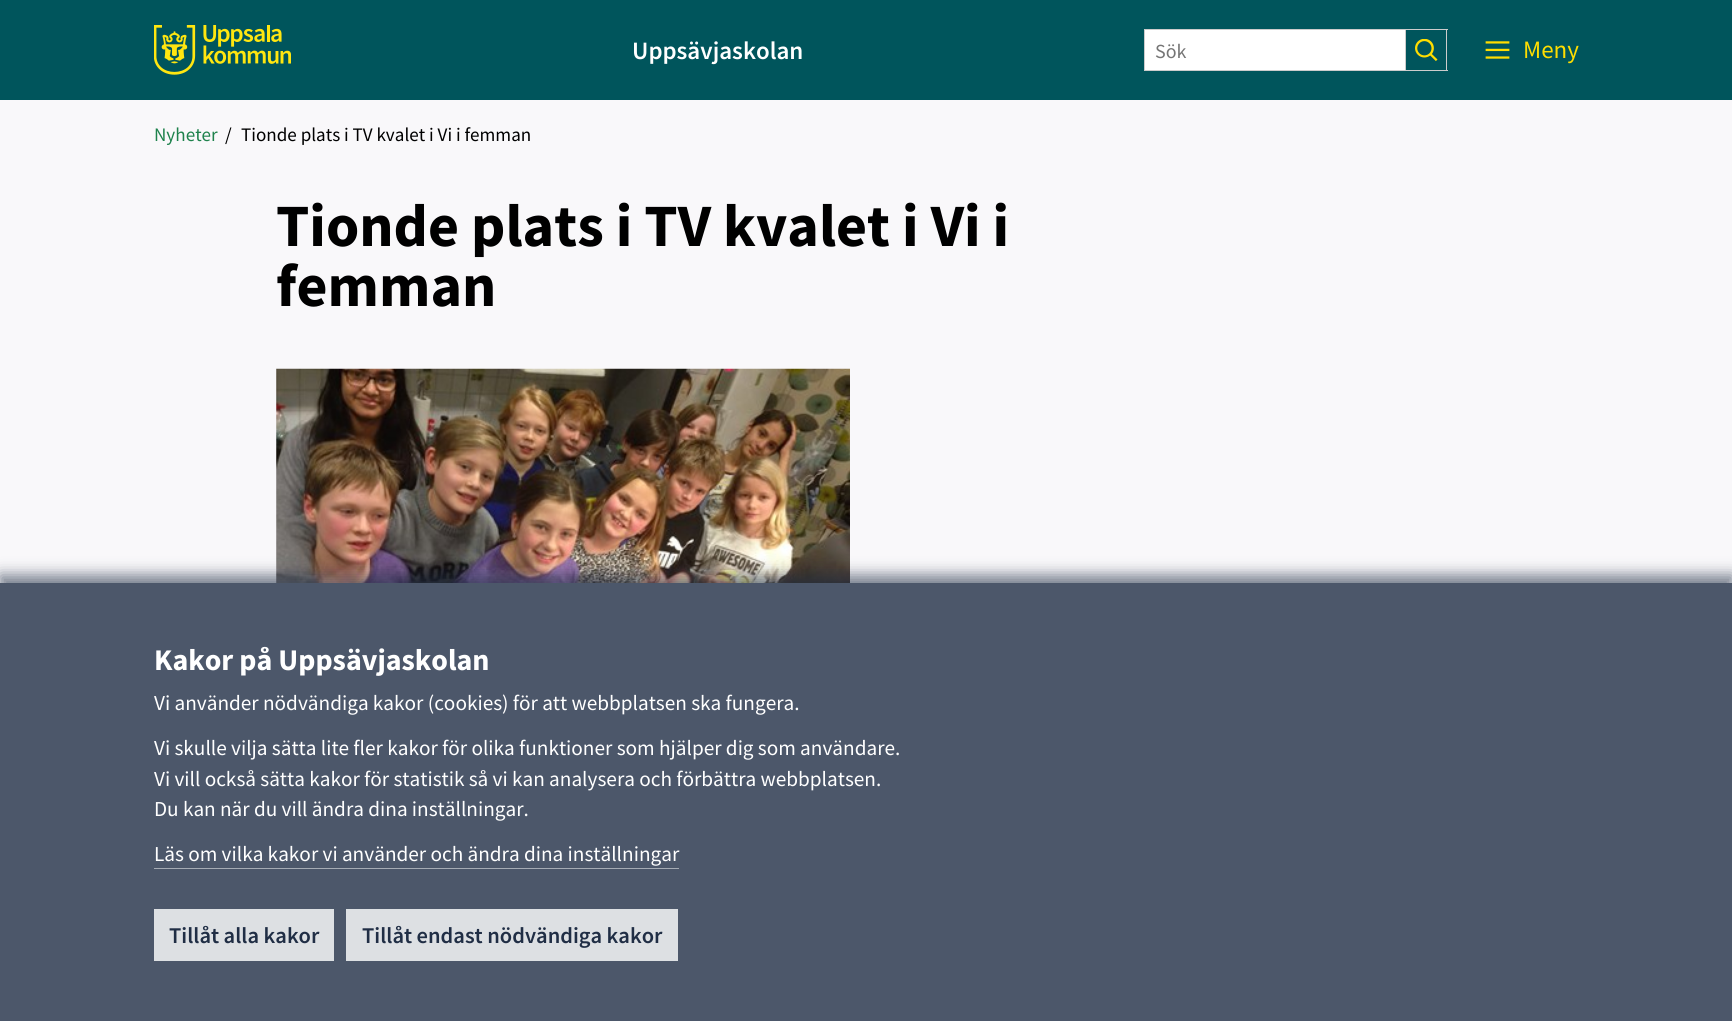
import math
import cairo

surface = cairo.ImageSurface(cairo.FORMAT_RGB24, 1732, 1021)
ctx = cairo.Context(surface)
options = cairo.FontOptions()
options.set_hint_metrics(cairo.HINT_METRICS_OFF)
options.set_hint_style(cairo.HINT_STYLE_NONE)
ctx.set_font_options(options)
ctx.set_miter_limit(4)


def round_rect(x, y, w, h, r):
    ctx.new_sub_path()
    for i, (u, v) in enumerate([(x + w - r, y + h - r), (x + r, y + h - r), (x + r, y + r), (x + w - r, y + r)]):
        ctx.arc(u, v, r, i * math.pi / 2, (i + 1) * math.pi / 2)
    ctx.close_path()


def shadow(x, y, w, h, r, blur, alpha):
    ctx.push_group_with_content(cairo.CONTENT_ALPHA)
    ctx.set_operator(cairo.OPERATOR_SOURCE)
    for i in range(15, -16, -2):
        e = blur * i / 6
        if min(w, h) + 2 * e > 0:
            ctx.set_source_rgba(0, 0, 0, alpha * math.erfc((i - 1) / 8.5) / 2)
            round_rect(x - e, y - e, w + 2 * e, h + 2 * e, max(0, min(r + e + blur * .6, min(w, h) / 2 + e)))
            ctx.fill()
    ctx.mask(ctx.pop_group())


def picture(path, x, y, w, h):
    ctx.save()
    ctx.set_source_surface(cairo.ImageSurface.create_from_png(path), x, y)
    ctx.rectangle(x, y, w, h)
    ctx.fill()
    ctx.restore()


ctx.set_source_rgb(0.976, 0.969, 0.98)
ctx.paint()
ctx.set_source_rgb(0, 0.333, 0.361)
ctx.rectangle(0, 0, 1732, 100)
ctx.fill()
picture("img1.png", 154, 25, 137, 50)
ctx.select_font_face("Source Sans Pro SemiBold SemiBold")
ctx.set_font_size(25)
ctx.set_source_rgb(1, 1, 1)
ctx.move_to(632, 59)
ctx.show_text("Uppsävjaskolan")
ctx.rectangle(1144.5, 29.5, 261, 41)
ctx.fill_preserve()
ctx.set_source_rgb(0.8, 0.8, 0.8)
ctx.set_line_width(1)
ctx.stroke()
ctx.select_font_face("Source Sans Pro")
ctx.set_font_size(20)
ctx.set_source_rgb(0.459, 0.459, 0.459)
ctx.move_to(1155, 58)
ctx.show_text("Sök")
picture("img2.png", 1415, 39, 23, 22)
ctx.set_source_rgb(0.8, 0.8, 0.8)
ctx.rectangle(1406, 29, 42, 1)
ctx.fill()
ctx.rectangle(1446, 29, 1, 42)
ctx.fill()
ctx.rectangle(1406, 70, 42, 1)
ctx.fill()
picture("img3.png", 1485, 41, 25, 18)
ctx.set_font_size(25)
ctx.set_source_rgb(1, 0.867, 0)
ctx.move_to(1523, 58)
ctx.show_text("Meny")
ctx.set_font_size(19.1)
ctx.set_source_rgb(0.118, 0.51, 0.298)
ctx.move_to(154, 141)
ctx.show_text("Nyheter")
ctx.set_source_rgb(0, 0, 0)
ctx.move_to(225, 141)
ctx.show_text("/")
ctx.move_to(241, 141)
ctx.show_text("Tionde plats i TV kvalet i Vi i femman")
ctx.select_font_face("Source Sans Pro", cairo.FONT_SLANT_NORMAL, cairo.FONT_WEIGHT_BOLD)
ctx.set_font_size(60)
ctx.move_to(276, 246)
ctx.show_text("Tionde plats i TV kvalet i Vi i")
ctx.move_to(276, 306)
ctx.show_text("femman")
picture("img4.png", 276, 368, 574, 215)
ctx.set_source_rgb(0.125, 0.18, 0.271)
shadow(0, 575, 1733, 439, 0, 7.5, 0.61)
ctx.set_source_rgb(0.298, 0.341, 0.416)
ctx.rectangle(0, 583, 1732, 438)
ctx.fill()
ctx.set_font_size(30)
ctx.set_source_rgb(1, 1, 1)
ctx.move_to(154, 670)
ctx.show_text("Kakor på Uppsävjaskolan")
ctx.select_font_face("Source Sans Pro")
ctx.set_font_size(21.25)
ctx.move_to(154, 710)
ctx.show_text("Vi använder nödvändiga kakor (cookies) för att webbplatsen ska fungera.")
ctx.move_to(154, 755)
ctx.show_text("Vi skulle vilja sätta lite fler kakor för olika funktioner som hjälper dig som användare.")
ctx.move_to(154, 786)
ctx.show_text("Vi vill också sätta kakor för statistik så vi kan analysera och förbättra webbplatsen.")
ctx.move_to(154, 816)
ctx.show_text("Du kan när du vill ändra dina inställningar.")
ctx.move_to(154, 861)
ctx.show_text("Läs om vilka kakor vi använder och ändra dina inställningar")
ctx.set_source_rgb(0.647, 0.671, 0.706)
ctx.rectangle(154, 868, 525, 1)
ctx.fill()
ctx.set_source_rgb(0.867, 0.878, 0.89)
ctx.rectangle(154, 909, 180, 52)
ctx.fill()
ctx.select_font_face("Source Sans Pro SemiBold SemiBold")
ctx.set_font_size(22.5)
ctx.set_source_rgb(0.125, 0.18, 0.271)
ctx.move_to(169, 943)
ctx.show_text("Tillåt alla kakor")
ctx.set_source_rgb(0.867, 0.878, 0.89)
ctx.rectangle(346, 909, 332, 52)
ctx.fill()
ctx.set_source_rgb(0.125, 0.18, 0.271)
ctx.move_to(362, 943)
ctx.show_text("Tillåt endast nödvändiga kakor")
surface.write_to_png("page.png")
